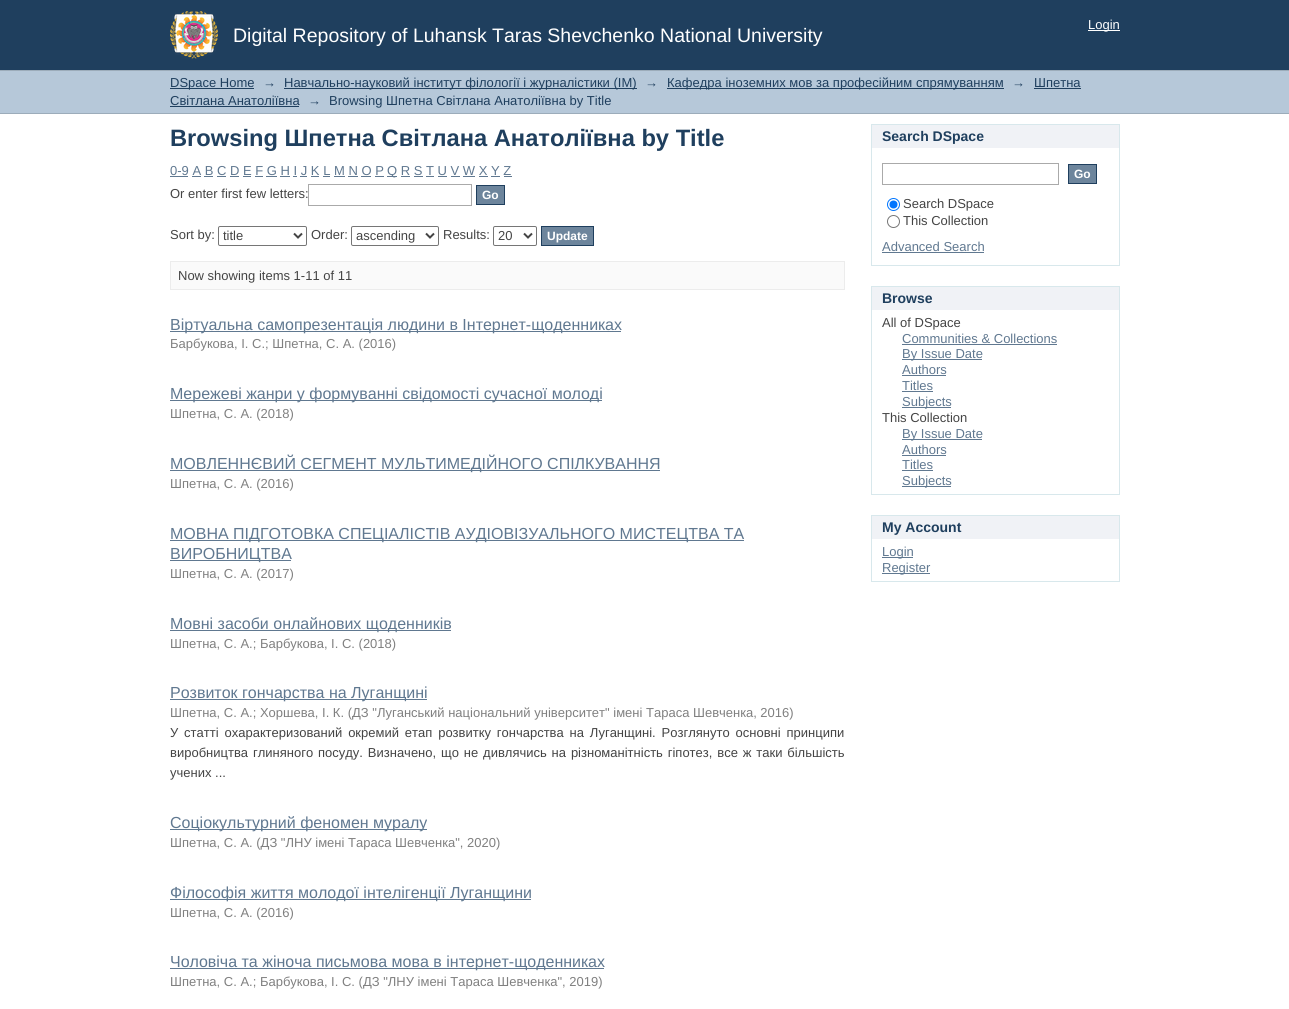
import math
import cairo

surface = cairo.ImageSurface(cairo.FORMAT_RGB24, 1289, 1009)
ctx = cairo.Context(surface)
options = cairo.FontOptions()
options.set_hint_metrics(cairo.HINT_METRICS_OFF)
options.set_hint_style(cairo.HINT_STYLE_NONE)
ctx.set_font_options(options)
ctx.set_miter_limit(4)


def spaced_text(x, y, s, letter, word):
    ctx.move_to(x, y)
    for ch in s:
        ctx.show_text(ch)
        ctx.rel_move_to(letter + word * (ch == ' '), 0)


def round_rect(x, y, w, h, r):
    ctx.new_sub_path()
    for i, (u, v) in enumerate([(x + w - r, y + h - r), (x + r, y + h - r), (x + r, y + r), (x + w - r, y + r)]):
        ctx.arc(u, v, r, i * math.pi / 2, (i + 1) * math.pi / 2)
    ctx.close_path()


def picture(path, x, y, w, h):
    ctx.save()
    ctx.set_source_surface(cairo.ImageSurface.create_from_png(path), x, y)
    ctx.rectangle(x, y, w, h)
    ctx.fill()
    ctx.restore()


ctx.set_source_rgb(1, 1, 1)
ctx.paint()
ctx.set_source_rgb(0.122, 0.247, 0.369)
ctx.rectangle(0, 0, 1289, 70)
ctx.fill()
ctx.set_source_rgb(1, 1, 1)
ctx.rectangle(1088, 30, 32, 1)
ctx.fill()
ctx.select_font_face("Liberation Sans")
ctx.set_font_size(13)
ctx.move_to(1088, 29)
ctx.show_text("Login")
picture("img1.png", 170, 11, 48, 48)
ctx.set_font_size(19.5)
ctx.move_to(233, 42)
ctx.show_text("Digital Repository of Luhansk Taras Shevchenko National University")
ctx.set_source_rgb(0.714, 0.784, 0.851)
ctx.rectangle(0, 71, 1289, 42)
ctx.fill()
ctx.set_source_rgb(0.612, 0.675, 0.729)
ctx.rectangle(0, 70, 1289, 1)
ctx.fill()
ctx.rectangle(0, 113, 1289, 1)
ctx.fill()
ctx.set_source_rgb(0.122, 0.247, 0.369)
ctx.rectangle(170, 88, 84, 1)
ctx.fill()
ctx.set_font_size(13)
ctx.move_to(170, 87)
ctx.show_text("DSpace Home")
ctx.move_to(263, 87)
ctx.show_text("→")
ctx.rectangle(284, 88, 353, 1)
ctx.fill()
ctx.move_to(284, 87)
ctx.show_text("Навчально-науковий інститут філології і журналістики (ІМ)")
ctx.move_to(645, 87)
ctx.show_text("→")
ctx.rectangle(667, 88, 337, 1)
ctx.fill()
ctx.move_to(667, 87)
ctx.show_text("Кафедра іноземних мов за професійним спрямуванням")
ctx.move_to(1012, 87)
ctx.show_text("→")
ctx.move_to(1034, 87)
ctx.show_text("Шпетна")
ctx.rectangle(1034, 88, 47, 1)
ctx.fill()
ctx.move_to(170, 105)
ctx.show_text("Світлана Анатоліївна")
ctx.rectangle(170, 106, 129, 1)
ctx.fill()
ctx.move_to(308, 105)
ctx.show_text("→")
ctx.move_to(329, 105)
ctx.show_text("Browsing Шпетна Світлана Анатоліївна by Title")
ctx.select_font_face("Liberation Sans", cairo.FONT_SLANT_NORMAL, cairo.FONT_WEIGHT_BOLD)
ctx.set_font_size(23.7)
ctx.move_to(170, 146)
ctx.show_text("Browsing Шпетна Світлана Анатоліївна by Title")
ctx.select_font_face("Liberation Sans")
ctx.set_font_size(13)
ctx.set_source_rgb(0.376, 0.471, 0.565)
ctx.move_to(170, 175)
ctx.show_text("0-9 A B C D E F G H I J K L M N O P")
ctx.rectangle(170, 176, 18, 1)
ctx.fill()
ctx.rectangle(387, 176, 10, 1)
ctx.fill()
ctx.move_to(387, 175)
ctx.show_text("Q R S T U V W X Y Z")
ctx.rectangle(192, 176, 9, 1)
ctx.fill()
ctx.rectangle(204, 176, 9, 1)
ctx.fill()
ctx.rectangle(217, 176, 9, 1)
ctx.fill()
ctx.rectangle(230, 176, 9, 1)
ctx.fill()
ctx.rectangle(243, 176, 8, 1)
ctx.fill()
ctx.rectangle(255, 176, 8, 1)
ctx.fill()
ctx.rectangle(266, 176, 11, 1)
ctx.fill()
ctx.rectangle(280, 176, 10, 1)
ctx.fill()
ctx.rectangle(293, 176, 4, 1)
ctx.fill()
ctx.rectangle(300, 176, 7, 1)
ctx.fill()
ctx.rectangle(311, 176, 8, 1)
ctx.fill()
ctx.rectangle(323, 176, 7, 1)
ctx.fill()
ctx.rectangle(334, 176, 11, 1)
ctx.fill()
ctx.rectangle(348, 176, 10, 1)
ctx.fill()
ctx.rectangle(361, 176, 10, 1)
ctx.fill()
ctx.rectangle(375, 176, 9, 1)
ctx.fill()
ctx.rectangle(401, 176, 9, 1)
ctx.fill()
ctx.rectangle(414, 176, 9, 1)
ctx.fill()
ctx.rectangle(426, 176, 8, 1)
ctx.fill()
ctx.rectangle(438, 176, 9, 1)
ctx.fill()
ctx.rectangle(451, 176, 9, 1)
ctx.fill()
ctx.rectangle(463, 176, 12, 1)
ctx.fill()
ctx.rectangle(479, 176, 9, 1)
ctx.fill()
ctx.rectangle(491, 176, 9, 1)
ctx.fill()
ctx.rectangle(504, 176, 8, 1)
ctx.fill()
ctx.set_source_rgb(0.267, 0.267, 0.267)
ctx.move_to(170, 198)
ctx.show_text("Or enter first few letters:")
ctx.rectangle(308.5, 184.5, 163, 21)
ctx.set_source_rgb(0.667, 0.667, 0.667)
ctx.set_line_width(1)
ctx.stroke()
ctx.set_source_rgb(0.427, 0.522, 0.612)
ctx.rectangle(476.5, 185.5, 28, 19)
ctx.fill_preserve()
ctx.set_source_rgb(0.122, 0.247, 0.369)
ctx.stroke()
ctx.select_font_face("Liberation Sans", cairo.FONT_SLANT_NORMAL, cairo.FONT_WEIGHT_BOLD)
ctx.set_font_size(12)
ctx.set_source_rgb(1, 1, 1)
ctx.move_to(482, 199)
ctx.show_text("Go")
ctx.select_font_face("Liberation Sans")
ctx.set_font_size(13)
ctx.set_source_rgb(0.267, 0.267, 0.267)
ctx.move_to(170, 239)
ctx.show_text("Sort by:")
round_rect(218.5, 226.5, 88, 19, 1.5)
ctx.set_source_rgb(0.463, 0.463, 0.463)
ctx.stroke()
ctx.new_path()
ctx.move_to(294, 233.5)
ctx.line_to(298, 237.5)
ctx.line_to(302, 233.5)
ctx.set_source_rgb(0.267, 0.267, 0.267)
ctx.set_line_width(2)
ctx.stroke()
ctx.move_to(223, 240)
ctx.show_text("title")
ctx.move_to(311, 239)
ctx.show_text("Order:")
round_rect(351.5, 226.5, 87, 19, 1.5)
ctx.set_source_rgb(0.463, 0.463, 0.463)
ctx.set_line_width(1)
ctx.stroke()
ctx.new_path()
ctx.move_to(426, 233.5)
ctx.line_to(430, 237.5)
ctx.line_to(434, 233.5)
ctx.set_source_rgb(0.267, 0.267, 0.267)
ctx.set_line_width(2)
ctx.stroke()
ctx.move_to(356, 240)
ctx.show_text("ascending")
ctx.move_to(443, 239)
ctx.show_text("Results:")
round_rect(493.5, 226.5, 43, 19, 1.5)
ctx.set_source_rgb(0.463, 0.463, 0.463)
ctx.set_line_width(1)
ctx.stroke()
ctx.new_path()
ctx.move_to(524, 233.5)
ctx.line_to(528, 237.5)
ctx.line_to(532, 233.5)
ctx.set_source_rgb(0.267, 0.267, 0.267)
ctx.set_line_width(2)
ctx.stroke()
ctx.move_to(498, 240)
ctx.show_text("20")
ctx.set_source_rgb(0.427, 0.522, 0.612)
ctx.rectangle(541.5, 226.5, 52, 19)
ctx.fill_preserve()
ctx.set_source_rgb(0.122, 0.247, 0.369)
ctx.set_line_width(1)
ctx.stroke()
ctx.select_font_face("Liberation Sans", cairo.FONT_SLANT_NORMAL, cairo.FONT_WEIGHT_BOLD)
ctx.set_font_size(12)
ctx.set_source_rgb(1, 1, 1)
ctx.move_to(547, 240)
ctx.show_text("Update")
ctx.set_source_rgb(0.98, 0.98, 0.98)
ctx.rectangle(170.5, 261.5, 674, 28)
ctx.fill_preserve()
ctx.set_source_rgb(0.922, 0.922, 0.922)
ctx.stroke()
ctx.select_font_face("Liberation Sans")
ctx.set_font_size(13)
ctx.set_source_rgb(0.267, 0.267, 0.267)
ctx.move_to(178, 280)
ctx.show_text("Now showing items 1-11 of 11")
ctx.set_source_rgb(0.376, 0.471, 0.565)
ctx.rectangle(170, 331, 451, 1)
ctx.fill()
ctx.set_font_size(16)
ctx.move_to(170, 330)
ctx.show_text("Віртуальна самопрезентація людини в Інтернет-щоденниках")
ctx.set_font_size(13)
ctx.set_source_rgb(0.502, 0.502, 0.502)
ctx.move_to(170, 348)
ctx.show_text("Барбукова, І. С.; Шпетна, С. А. (2016)")
ctx.set_source_rgb(0.376, 0.471, 0.565)
ctx.rectangle(170, 400, 432, 1)
ctx.fill()
ctx.set_font_size(16)
ctx.move_to(170, 399)
ctx.show_text("Мережеві жанри у формуванні свідомості сучасної молоді")
ctx.set_font_size(13)
ctx.set_source_rgb(0.502, 0.502, 0.502)
ctx.move_to(170, 418)
ctx.show_text("Шпетна, С. А. (2018)")
ctx.set_source_rgb(0.376, 0.471, 0.565)
ctx.rectangle(170, 470, 490, 1)
ctx.fill()
ctx.set_font_size(16)
ctx.move_to(170, 469)
ctx.show_text("МОВЛЕННЄВИЙ СЕГМЕНТ МУЛЬТИМЕДІЙНОГО СПІЛКУВАННЯ")
ctx.set_font_size(13)
ctx.set_source_rgb(0.502, 0.502, 0.502)
ctx.move_to(170, 488)
ctx.show_text("Шпетна, С. А. (2016)")
ctx.set_source_rgb(0.376, 0.471, 0.565)
ctx.rectangle(170, 540, 574, 1)
ctx.fill()
ctx.set_font_size(16)
ctx.move_to(170, 539)
ctx.show_text("МОВНА ПІДГОТОВКА СПЕЦІАЛІСТІВ АУДІОВІЗУАЛЬНОГО МИСТЕЦТВА ТА")
ctx.rectangle(170, 560, 121, 1)
ctx.fill()
ctx.move_to(170, 559)
ctx.show_text("ВИРОБНИЦТВА")
ctx.set_font_size(13)
ctx.set_source_rgb(0.502, 0.502, 0.502)
ctx.move_to(170, 578)
ctx.show_text("Шпетна, С. А. (2017)")
ctx.set_source_rgb(0.376, 0.471, 0.565)
ctx.rectangle(170, 630, 281, 1)
ctx.fill()
ctx.set_font_size(16)
ctx.move_to(170, 629)
ctx.show_text("Мовні засоби онлайнових щоденників")
ctx.set_font_size(13)
ctx.set_source_rgb(0.502, 0.502, 0.502)
ctx.move_to(170, 648)
ctx.show_text("Шпетна, С. А.; Барбукова, І. С. (2018)")
ctx.set_source_rgb(0.376, 0.471, 0.565)
ctx.rectangle(170, 699, 257, 1)
ctx.fill()
ctx.set_font_size(16)
ctx.move_to(170, 698)
ctx.show_text("Розвиток гончарства на Луганщині")
ctx.set_font_size(13)
ctx.set_source_rgb(0.502, 0.502, 0.502)
ctx.move_to(170, 717)
ctx.show_text("Шпетна, С. А.; Хоршева, І. К. (ДЗ \"Луганський національний університет\" імені Тараса Шевченка, 2016)")
ctx.set_source_rgb(0.267, 0.267, 0.267)
spaced_text(170, 737, "У статті охарактеризований окремий етап розвитку гончарства на Луганщині. Розглянуто основні принципи", 0, 2.25)
spaced_text(170, 757, "виробництва глиняного посуду. Визначено, що не дивлячись на різноманітність гіпотез, все ж таки більшість", 0, 1.25)
ctx.move_to(170, 777)
ctx.show_text("учених ...")
ctx.set_source_rgb(0.376, 0.471, 0.565)
ctx.rectangle(170, 829, 257, 1)
ctx.fill()
ctx.set_font_size(16)
ctx.move_to(170, 828)
ctx.show_text("Соціокультурний феномен муралу")
ctx.set_font_size(13)
ctx.set_source_rgb(0.502, 0.502, 0.502)
ctx.move_to(170, 847)
ctx.show_text("Шпетна, С. А. (ДЗ \"ЛНУ імені Тараса Шевченка\", 2020)")
ctx.set_source_rgb(0.376, 0.471, 0.565)
ctx.rectangle(170, 899, 361, 1)
ctx.fill()
ctx.set_font_size(16)
ctx.move_to(170, 898)
ctx.show_text("Філософія життя молодої інтелігенції Луганщини")
ctx.set_font_size(13)
ctx.set_source_rgb(0.502, 0.502, 0.502)
ctx.move_to(170, 917)
ctx.show_text("Шпетна, С. А. (2016)")
ctx.set_source_rgb(0.376, 0.471, 0.565)
ctx.rectangle(170, 968, 434, 1)
ctx.fill()
ctx.set_font_size(16)
ctx.move_to(170, 967)
ctx.show_text("Чоловіча та жіноча письмова мова в інтернет-щоденниках")
ctx.set_font_size(13)
ctx.set_source_rgb(0.502, 0.502, 0.502)
ctx.move_to(170, 986)
ctx.show_text("Шпетна, С. А.; Барбукова, І. С. (ДЗ \"ЛНУ імені Тараса Шевченка\", 2019)")
ctx.set_source_rgb(0.941, 0.949, 0.961)
ctx.rectangle(872, 125, 247, 23)
ctx.fill()
ctx.set_source_rgb(0.847, 0.91, 0.922)
ctx.rectangle(871, 124, 249, 1)
ctx.fill()
ctx.rectangle(1119, 124, 1, 142)
ctx.fill()
ctx.rectangle(871, 124, 1, 24)
ctx.fill()
ctx.select_font_face("Liberation Sans", cairo.FONT_SLANT_NORMAL, cairo.FONT_WEIGHT_BOLD)
ctx.set_font_size(14)
ctx.set_source_rgb(0.122, 0.247, 0.369)
ctx.move_to(882, 141)
ctx.show_text("Search DSpace")
ctx.set_source_rgb(0.847, 0.91, 0.922)
ctx.rectangle(871, 265, 249, 1)
ctx.fill()
ctx.rectangle(871, 148, 1, 118)
ctx.fill()
ctx.rectangle(882.5, 163.5, 176, 21)
ctx.set_source_rgb(0.667, 0.667, 0.667)
ctx.stroke()
ctx.set_source_rgb(0.427, 0.522, 0.612)
ctx.rectangle(1068.5, 164.5, 28, 19)
ctx.fill_preserve()
ctx.set_source_rgb(0.122, 0.247, 0.369)
ctx.stroke()
ctx.set_font_size(12)
ctx.set_source_rgb(1, 1, 1)
ctx.move_to(1074, 178)
ctx.show_text("Go")
ctx.new_path()
ctx.arc(893.5, 204.5, 6, 0, 2 * math.pi)
ctx.set_source_rgb(0, 0.459, 1)
ctx.stroke()
ctx.arc(893.5, 204.5, 4, 0, 2 * math.pi)
ctx.fill()
ctx.select_font_face("Liberation Sans")
ctx.set_font_size(13)
ctx.set_source_rgb(0.267, 0.267, 0.267)
ctx.move_to(903, 208)
ctx.show_text("Search DSpace")
ctx.new_path()
ctx.arc(893.5, 221.5, 6, 0, 2 * math.pi)
ctx.set_source_rgb(0.463, 0.463, 0.463)
ctx.stroke()
ctx.set_source_rgb(0.267, 0.267, 0.267)
ctx.move_to(903, 225)
ctx.show_text("This Collection")
ctx.set_source_rgb(0.376, 0.471, 0.565)
ctx.move_to(882, 251)
ctx.show_text("Advanced Search")
ctx.rectangle(882, 252, 102, 1)
ctx.fill()
ctx.set_source_rgb(0.941, 0.949, 0.961)
ctx.rectangle(872, 287, 247, 23)
ctx.fill()
ctx.set_source_rgb(0.847, 0.91, 0.922)
ctx.rectangle(871, 286, 249, 1)
ctx.fill()
ctx.rectangle(1119, 286, 1, 209)
ctx.fill()
ctx.rectangle(871, 286, 1, 24)
ctx.fill()
ctx.select_font_face("Liberation Sans", cairo.FONT_SLANT_NORMAL, cairo.FONT_WEIGHT_BOLD)
ctx.set_font_size(14)
ctx.set_source_rgb(0.122, 0.247, 0.369)
ctx.move_to(882, 303)
ctx.show_text("Browse")
ctx.set_source_rgb(0.847, 0.91, 0.922)
ctx.rectangle(871, 494, 249, 1)
ctx.fill()
ctx.rectangle(871, 310, 1, 185)
ctx.fill()
ctx.select_font_face("Liberation Sans")
ctx.set_font_size(13)
ctx.set_source_rgb(0.267, 0.267, 0.267)
ctx.move_to(882, 327)
ctx.show_text("All of DSpace")
ctx.set_source_rgb(0.376, 0.471, 0.565)
ctx.move_to(902, 343)
ctx.show_text("Communities & Collections")
ctx.rectangle(902, 344, 155, 1)
ctx.fill()
ctx.rectangle(902, 359, 80, 1)
ctx.fill()
ctx.move_to(902, 358)
ctx.show_text("By Issue Date")
ctx.move_to(902, 374)
ctx.show_text("Authors")
ctx.rectangle(902, 375, 44, 1)
ctx.fill()
ctx.move_to(902, 390)
ctx.show_text("Titles")
ctx.rectangle(902, 391, 31, 1)
ctx.fill()
ctx.rectangle(902, 407, 49, 1)
ctx.fill()
ctx.move_to(902, 406)
ctx.show_text("Subjects")
ctx.set_source_rgb(0.267, 0.267, 0.267)
ctx.move_to(882, 422)
ctx.show_text("This Collection")
ctx.set_source_rgb(0.376, 0.471, 0.565)
ctx.rectangle(902, 439, 80, 1)
ctx.fill()
ctx.move_to(902, 438)
ctx.show_text("By Issue Date")
ctx.move_to(902, 454)
ctx.show_text("Authors")
ctx.rectangle(902, 455, 44, 1)
ctx.fill()
ctx.move_to(902, 469)
ctx.show_text("Titles")
ctx.rectangle(902, 470, 31, 1)
ctx.fill()
ctx.rectangle(902, 486, 49, 1)
ctx.fill()
ctx.move_to(902, 485)
ctx.show_text("Subjects")
ctx.set_source_rgb(0.941, 0.949, 0.961)
ctx.rectangle(872, 516, 247, 23)
ctx.fill()
ctx.set_source_rgb(0.847, 0.91, 0.922)
ctx.rectangle(871, 515, 249, 1)
ctx.fill()
ctx.rectangle(1119, 515, 1, 67)
ctx.fill()
ctx.rectangle(871, 515, 1, 24)
ctx.fill()
ctx.select_font_face("Liberation Sans", cairo.FONT_SLANT_NORMAL, cairo.FONT_WEIGHT_BOLD)
ctx.set_font_size(14)
ctx.set_source_rgb(0.122, 0.247, 0.369)
ctx.move_to(882, 532)
ctx.show_text("My Account")
ctx.set_source_rgb(0.847, 0.91, 0.922)
ctx.rectangle(871, 581, 249, 1)
ctx.fill()
ctx.rectangle(871, 539, 1, 43)
ctx.fill()
ctx.set_source_rgb(0.376, 0.471, 0.565)
ctx.rectangle(882, 557, 31, 1)
ctx.fill()
ctx.select_font_face("Liberation Sans")
ctx.set_font_size(13)
ctx.move_to(882, 556)
ctx.show_text("Login")
ctx.rectangle(882, 573, 48, 1)
ctx.fill()
ctx.move_to(882, 572)
ctx.show_text("Register")
surface.write_to_png("page.png")
